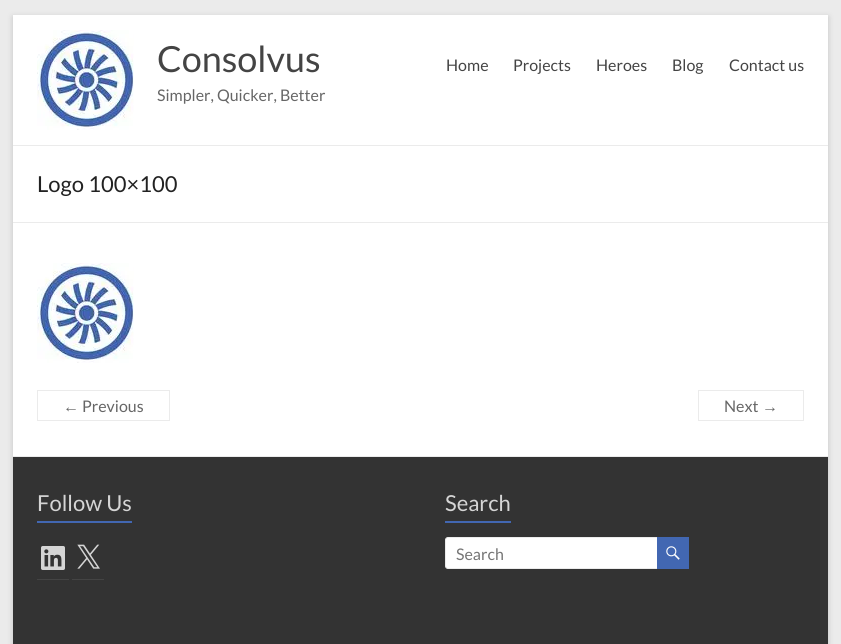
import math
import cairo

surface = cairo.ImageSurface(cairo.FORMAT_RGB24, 841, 644)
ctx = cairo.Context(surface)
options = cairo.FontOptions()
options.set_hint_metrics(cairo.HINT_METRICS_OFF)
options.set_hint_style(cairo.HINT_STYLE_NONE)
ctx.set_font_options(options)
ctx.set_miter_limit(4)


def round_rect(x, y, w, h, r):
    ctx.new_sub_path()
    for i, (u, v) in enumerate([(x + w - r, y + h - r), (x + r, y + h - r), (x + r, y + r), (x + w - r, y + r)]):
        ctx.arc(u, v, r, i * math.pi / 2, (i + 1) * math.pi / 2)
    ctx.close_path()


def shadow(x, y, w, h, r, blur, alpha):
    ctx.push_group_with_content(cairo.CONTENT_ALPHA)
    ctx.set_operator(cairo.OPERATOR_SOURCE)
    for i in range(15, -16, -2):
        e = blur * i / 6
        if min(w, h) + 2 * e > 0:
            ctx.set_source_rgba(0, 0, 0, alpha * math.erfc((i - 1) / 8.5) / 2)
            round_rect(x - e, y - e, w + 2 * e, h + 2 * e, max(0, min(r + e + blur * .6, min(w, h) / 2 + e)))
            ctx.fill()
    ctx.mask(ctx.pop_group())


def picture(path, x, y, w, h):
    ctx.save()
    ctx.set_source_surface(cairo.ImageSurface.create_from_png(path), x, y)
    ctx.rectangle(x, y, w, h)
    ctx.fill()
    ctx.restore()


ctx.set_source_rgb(0.918, 0.918, 0.918)
ctx.paint()
ctx.set_source_rgb(0.392, 0.392, 0.392)
shadow(13, 17, 815, 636, 0, 3, 0.3)
ctx.set_source_rgb(1, 1, 1)
ctx.rectangle(13, 15, 815, 441)
ctx.fill()
ctx.set_source_rgb(0.918, 0.918, 0.918)
ctx.rectangle(13, 145, 815, 1)
ctx.fill()
picture("img1.png", 37, 30, 97, 100)
ctx.select_font_face("Lato")
ctx.set_font_size(36)
ctx.set_source_rgb(0.267, 0.267, 0.267)
ctx.move_to(157, 72)
ctx.show_text("Consolvus")
ctx.set_font_size(16)
ctx.set_source_rgb(0.4, 0.4, 0.4)
ctx.move_to(157, 101)
ctx.show_text("Simpler, Quicker, Better")
ctx.set_source_rgb(0.267, 0.267, 0.267)
ctx.move_to(446, 71)
ctx.show_text("Home")
ctx.move_to(513, 71)
ctx.show_text("Projects")
ctx.move_to(596, 71)
ctx.show_text("Heroes")
ctx.move_to(672, 71)
ctx.show_text("Blog")
ctx.move_to(729, 71)
ctx.show_text("Contact us")
ctx.set_source_rgb(0.918, 0.918, 0.918)
ctx.rectangle(13, 222, 815, 1)
ctx.fill()
ctx.set_font_size(22)
ctx.set_source_rgb(0.133, 0.133, 0.133)
ctx.move_to(37, 192)
ctx.show_text("Logo 100×100")
picture("img1.png", 37, 263, 97, 100)
ctx.rectangle(37.5, 390.5, 132, 30)
ctx.set_source_rgb(0.918, 0.918, 0.918)
ctx.set_line_width(1)
ctx.stroke()
ctx.select_font_face("Liberation Sans")
ctx.set_font_size(16)
ctx.set_source_rgb(0.4, 0.4, 0.4)
ctx.move_to(63, 412)
ctx.show_text("←")
ctx.select_font_face("Lato")
ctx.move_to(82, 412)
ctx.show_text("Previous")
ctx.rectangle(698.5, 390.5, 105, 30)
ctx.set_source_rgb(0.918, 0.918, 0.918)
ctx.stroke()
ctx.set_source_rgb(0.4, 0.4, 0.4)
ctx.move_to(724, 412)
ctx.show_text("Next")
ctx.select_font_face("Liberation Sans")
ctx.move_to(762, 412)
ctx.show_text("→")
ctx.set_source_rgb(0.2, 0.2, 0.2)
ctx.rectangle(13, 457, 815, 187)
ctx.fill()
ctx.set_source_rgb(0.918, 0.918, 0.918)
ctx.rectangle(13, 456, 815, 1)
ctx.fill()
ctx.select_font_face("Lato")
ctx.set_font_size(22)
ctx.set_source_rgb(0.835, 0.835, 0.835)
ctx.move_to(37, 511)
ctx.show_text("Follow Us")
ctx.set_source_rgb(0.259, 0.404, 0.698)
ctx.rectangle(37, 521, 95, 2)
ctx.fill()
ctx.set_source_rgb(0.267, 0.267, 0.267)
ctx.rectangle(37, 579, 32, 1)
ctx.fill()
picture("img2.png", 41, 546, 24, 24)
ctx.rectangle(72, 579, 32, 1)
ctx.fill()
picture("img3.png", 77, 544, 23, 25)
ctx.set_source_rgb(0.835, 0.835, 0.835)
ctx.move_to(445, 511)
ctx.show_text("Search")
ctx.set_source_rgb(0.259, 0.404, 0.698)
ctx.rectangle(445, 521, 66, 2)
ctx.fill()
ctx.set_source_rgb(1, 1, 1)
round_rect(445.5, 537.5, 214, 31, 2.5)
ctx.fill_preserve()
ctx.set_source_rgb(0.918, 0.918, 0.918)
ctx.stroke()
ctx.set_font_size(16)
ctx.set_source_rgb(0.459, 0.459, 0.459)
ctx.move_to(456, 560)
ctx.show_text("Search")
ctx.set_source_rgb(0.259, 0.404, 0.698)
ctx.rectangle(657, 537, 32, 32)
ctx.fill()
picture("img4.png", 666, 546, 14, 14)
surface.write_to_png("page.png")
